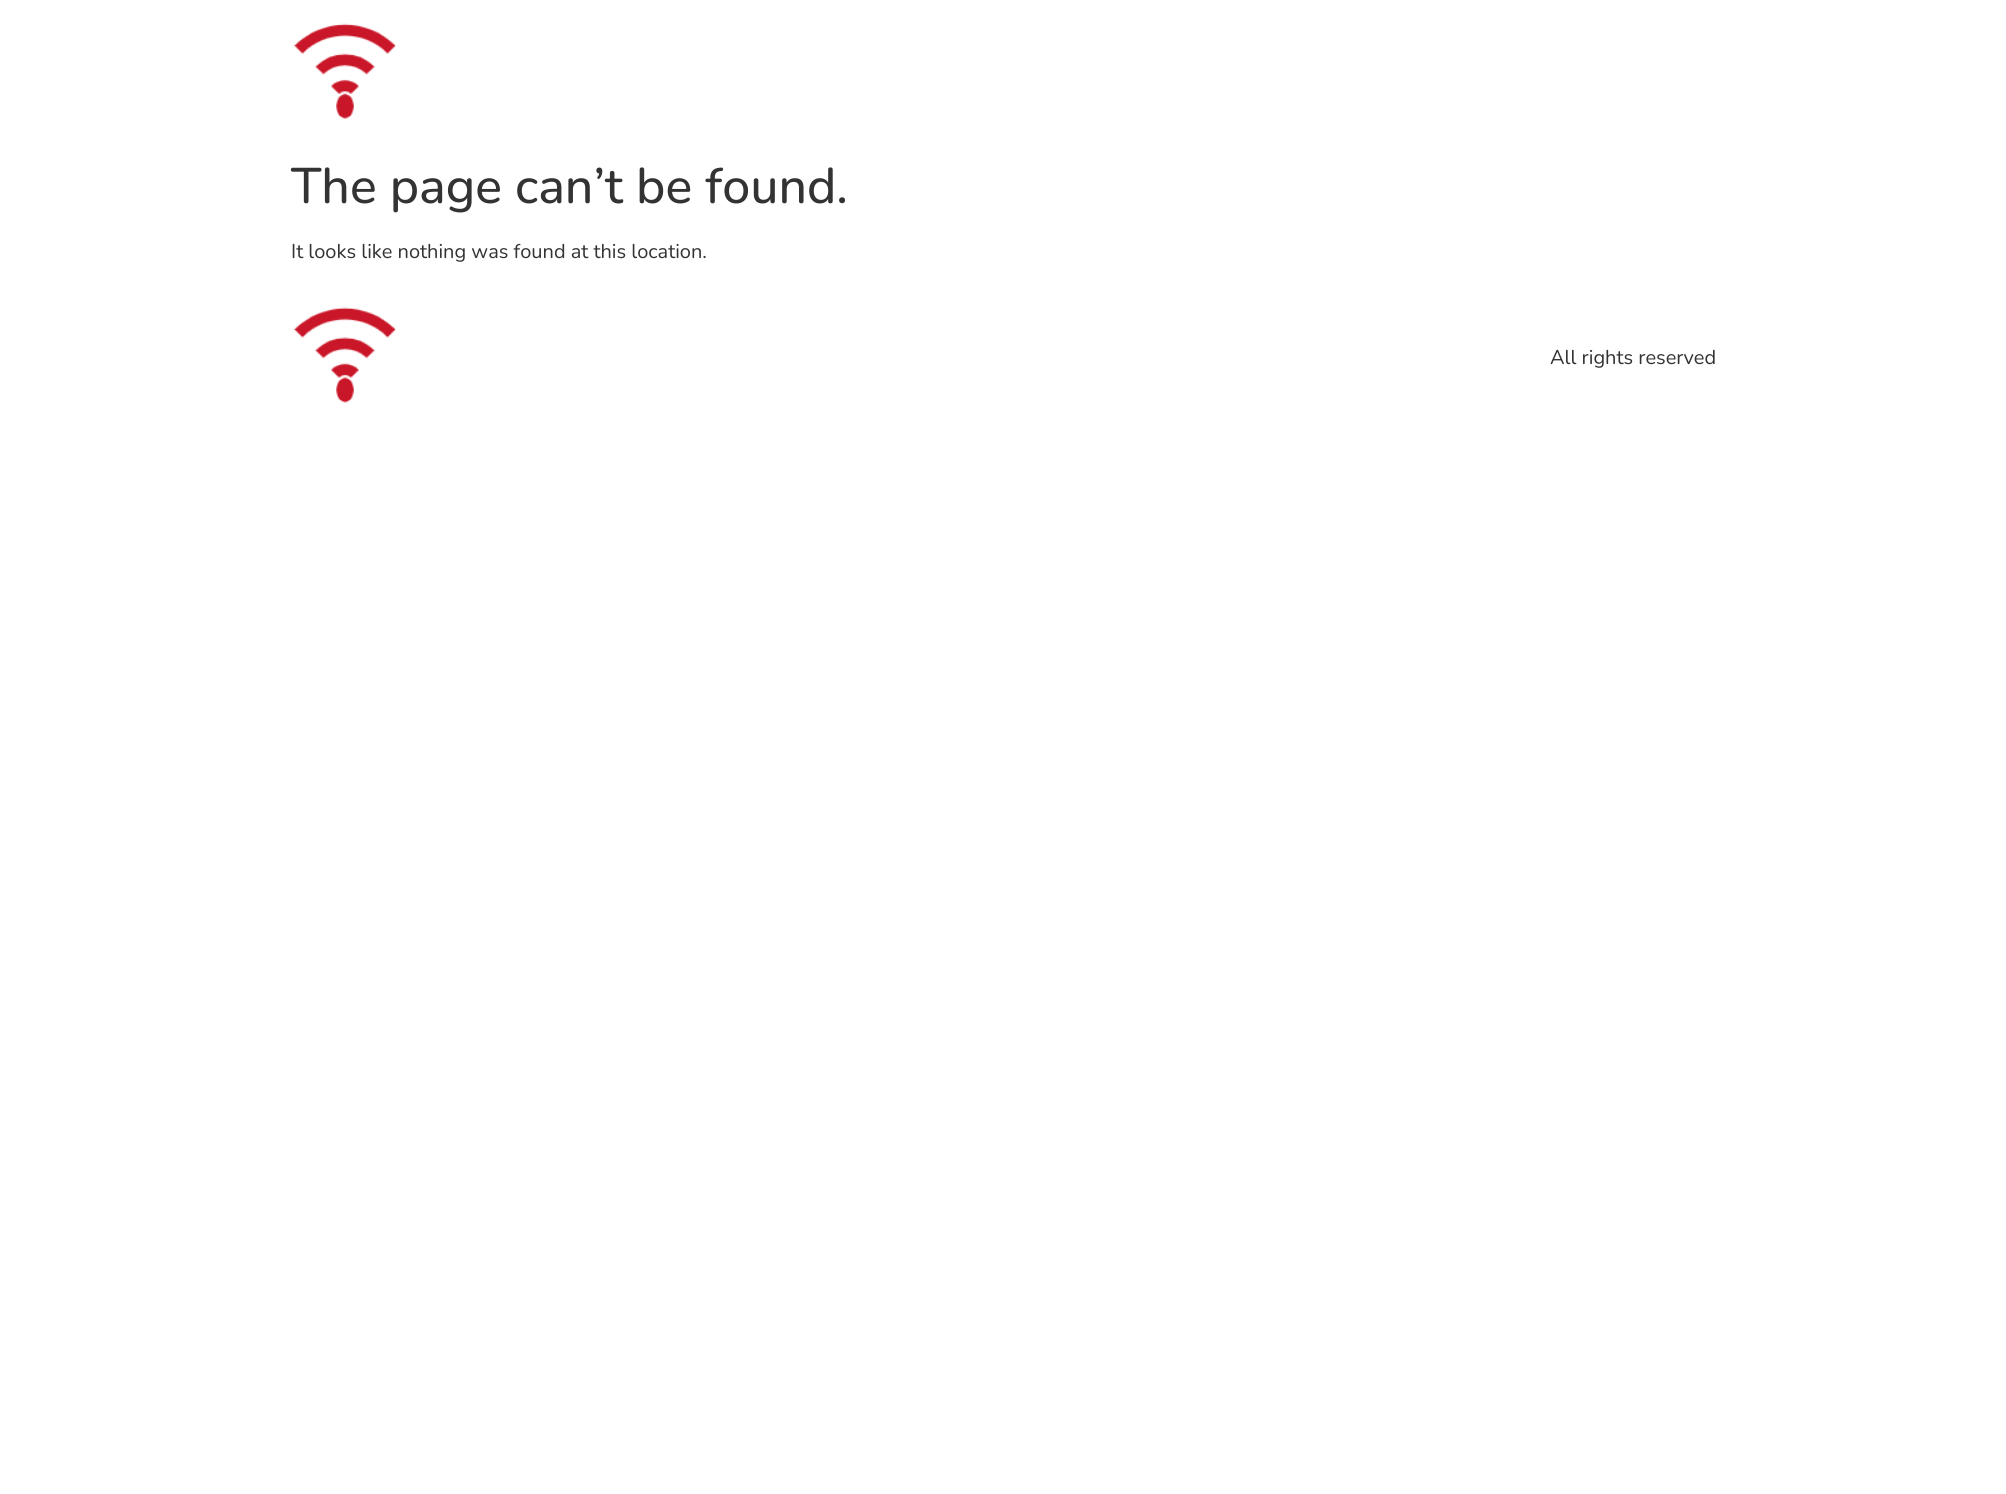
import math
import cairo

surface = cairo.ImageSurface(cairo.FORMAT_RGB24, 2006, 1494)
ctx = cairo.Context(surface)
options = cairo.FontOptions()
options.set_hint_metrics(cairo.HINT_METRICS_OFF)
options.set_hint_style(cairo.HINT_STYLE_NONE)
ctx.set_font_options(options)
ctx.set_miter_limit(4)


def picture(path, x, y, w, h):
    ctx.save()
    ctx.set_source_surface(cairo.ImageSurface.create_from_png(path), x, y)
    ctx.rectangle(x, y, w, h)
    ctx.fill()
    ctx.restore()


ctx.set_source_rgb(1, 1, 1)
ctx.paint()
picture("img1.png", 293, 23, 103, 96)
ctx.select_font_face("Nunito Medium")
ctx.set_font_size(50)
ctx.set_source_rgb(0.2, 0.2, 0.2)
ctx.move_to(291, 203)
ctx.show_text("The page can’t be found.")
ctx.select_font_face("Nunito")
ctx.set_font_size(20)
ctx.move_to(291, 258)
ctx.show_text("It looks like nothing was found at this location.")
picture("img2.png", 293, 307, 103, 96)
ctx.move_to(1550, 364)
ctx.show_text("All rights reserved")
surface.write_to_png("page.png")
